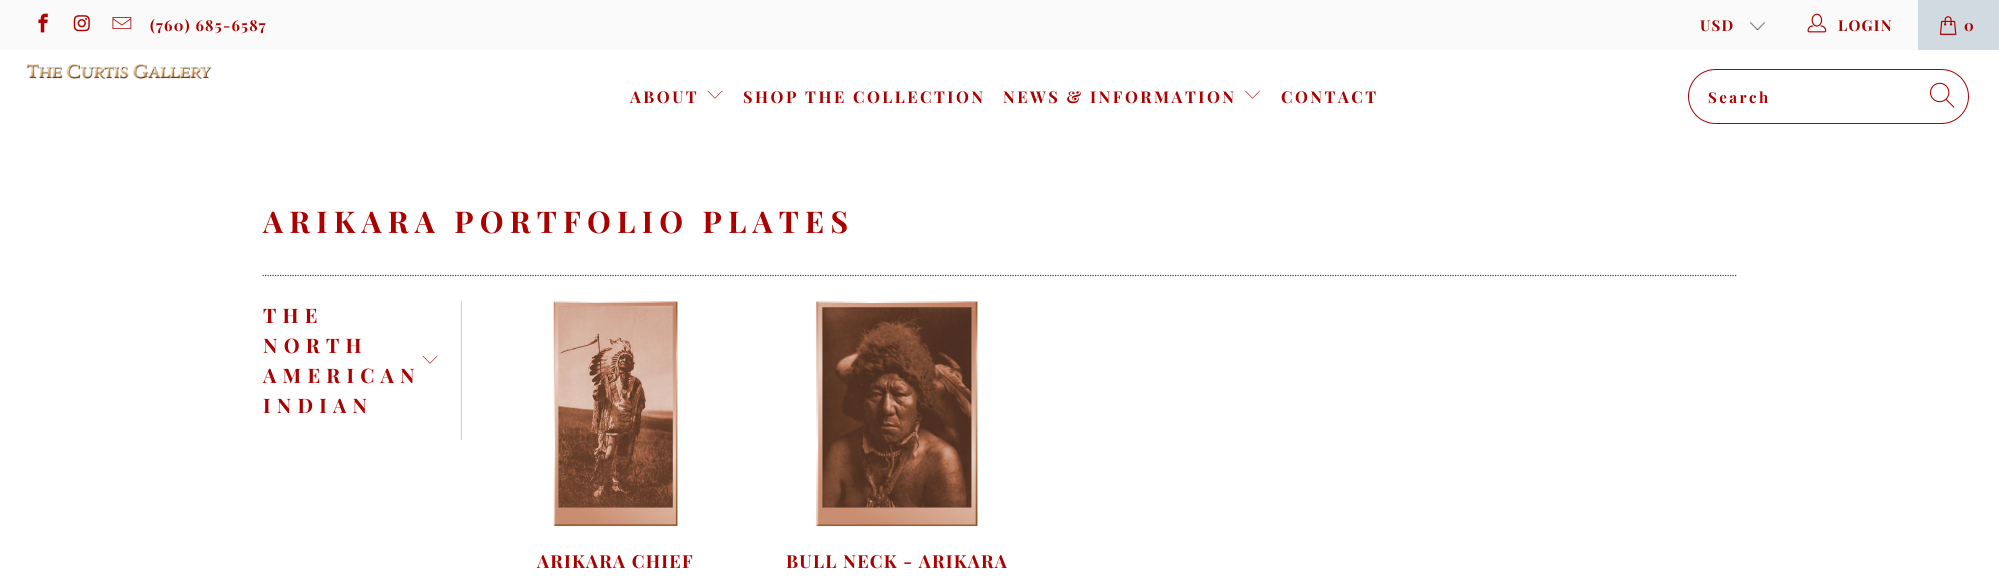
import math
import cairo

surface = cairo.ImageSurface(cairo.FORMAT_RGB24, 1999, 579)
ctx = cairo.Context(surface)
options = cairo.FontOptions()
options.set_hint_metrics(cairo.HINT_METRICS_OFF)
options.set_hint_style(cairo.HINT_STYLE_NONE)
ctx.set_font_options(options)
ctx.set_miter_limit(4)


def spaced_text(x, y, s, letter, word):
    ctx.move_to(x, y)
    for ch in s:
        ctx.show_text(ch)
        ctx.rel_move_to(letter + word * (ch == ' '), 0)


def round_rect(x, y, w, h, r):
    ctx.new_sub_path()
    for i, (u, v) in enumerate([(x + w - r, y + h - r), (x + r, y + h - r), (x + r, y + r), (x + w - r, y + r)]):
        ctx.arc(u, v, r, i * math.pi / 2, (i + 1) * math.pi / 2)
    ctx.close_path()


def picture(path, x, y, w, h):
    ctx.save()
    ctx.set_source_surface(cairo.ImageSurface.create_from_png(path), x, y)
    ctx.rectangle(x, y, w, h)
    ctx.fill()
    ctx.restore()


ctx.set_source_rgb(1, 1, 1)
ctx.paint()
ctx.set_source_rgb(0.98, 0.98, 0.98)
ctx.rectangle(0, 0, 1918, 50)
ctx.fill()
picture("img1.png", 38, 13, 10, 20)
picture("img2.png", 73, 15, 17, 17)
picture("img3.png", 112, 17, 20, 12)
ctx.select_font_face("Playfair Display", cairo.FONT_SLANT_NORMAL, cairo.FONT_WEIGHT_BOLD)
ctx.set_font_size(15)
ctx.set_source_rgb(0.667, 0, 0)
spaced_text(150, 31, "(760) 685-6587", 1.25, 0)
picture("img4.png", 1750, 21, 15, 10)
spaced_text(1700, 31, "USD", 1.25, 0)
picture("img5.png", 1807, 13, 20, 20)
spaced_text(1838, 31, "LOGIN", 1.25, 0)
ctx.set_source_rgb(0.82, 0.851, 0.882)
ctx.rectangle(1918, 0, 81, 50)
ctx.fill()
picture("img6.png", 1939, 16, 18, 19)
ctx.set_source_rgb(0.667, 0, 0)
spaced_text(1964, 31, "0", 1.25, 0)
picture("img7.png", 25, 63, 187, 17)
ctx.set_font_size(16.25)
spaced_text(630, 103, "ABOUT", 2.5, 0)
picture("img8.png", 707, 90, 16, 9)
spaced_text(743, 103, "SHOP THE COLLECTION", 2.5, 0)
spaced_text(1003, 103, "NEWS & INFORMATION", 2.5, 0)
picture("img9.png", 1245, 90, 15, 9)
spaced_text(1281, 103, "CONTACT", 2.5, 0)
round_rect(1688.5, 69.5, 280, 54, 27)
ctx.set_line_width(1)
ctx.stroke()
ctx.set_font_size(15)
spaced_text(1708, 103, "Search", 2.5, 0)
picture("img10.png", 1929, 82, 26, 26)
ctx.set_font_size(30)
spaced_text(263, 233, "ARIKARA PORTFOLIO PLATES", 6.25, 0)
ctx.new_path()
ctx.move_to(262.5, 275.5)
ctx.line_to(1737.5, 275.5)
ctx.set_source_rgb(0.267, 0.267, 0.267)
ctx.set_line_width(1.2)
ctx.set_dash([1.25, 1.25])
ctx.stroke()
ctx.set_source_rgb(0.8, 0.8, 0.8)
ctx.rectangle(461, 301, 1, 139)
ctx.fill()
ctx.set_font_size(20)
ctx.set_source_rgb(0.667, 0, 0)
spaced_text(263, 323, "THE", 6.25, 0)
spaced_text(263, 353, "NORTH", 6.25, 0)
picture("img8.png", 422, 355, 16, 9)
spaced_text(263, 383, "AMERICAN", 6.25, 0)
spaced_text(263, 413, "INDIAN", 6.25, 0)
picture("img11.png", 553, 301, 125, 226)
ctx.set_font_size(18)
spaced_text(537, 568, "ARIKARA CHIEF", 1.25, 0)
picture("img12.png", 816, 301, 162, 226)
spaced_text(786, 568, "BULL NECK - ARIKARA", 1.25, 0)
surface.write_to_png("page.png")
